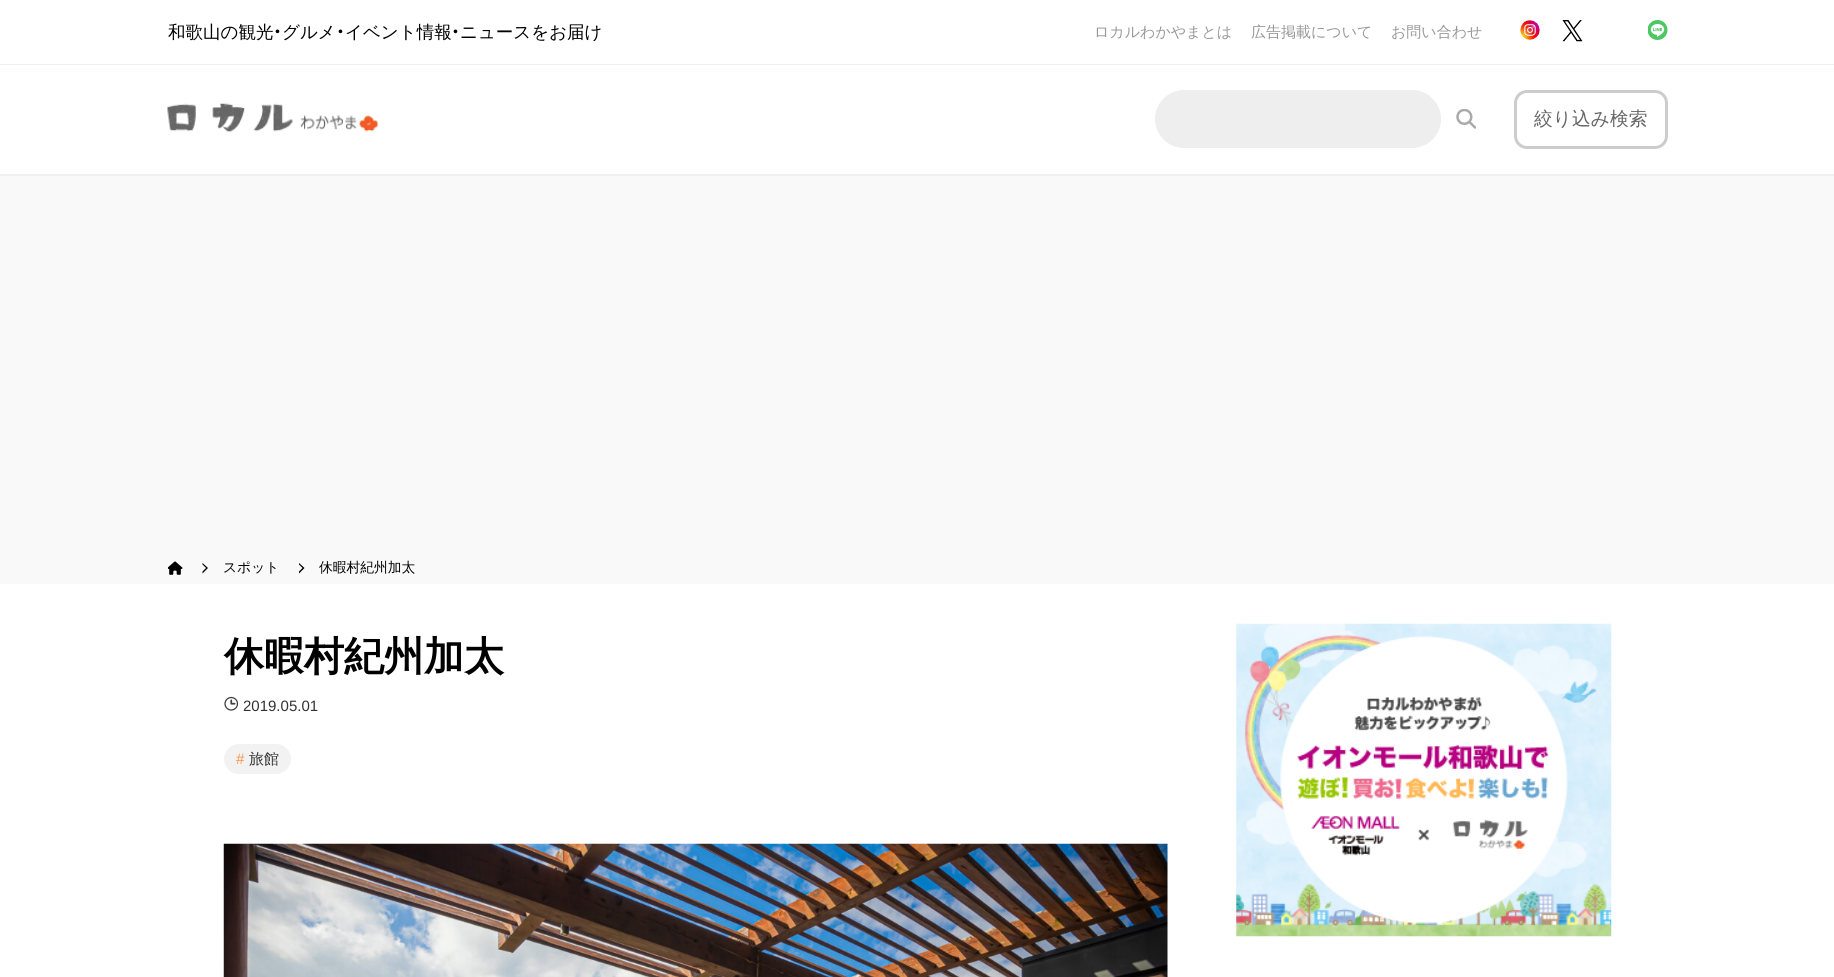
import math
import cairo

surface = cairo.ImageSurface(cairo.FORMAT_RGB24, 1834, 977)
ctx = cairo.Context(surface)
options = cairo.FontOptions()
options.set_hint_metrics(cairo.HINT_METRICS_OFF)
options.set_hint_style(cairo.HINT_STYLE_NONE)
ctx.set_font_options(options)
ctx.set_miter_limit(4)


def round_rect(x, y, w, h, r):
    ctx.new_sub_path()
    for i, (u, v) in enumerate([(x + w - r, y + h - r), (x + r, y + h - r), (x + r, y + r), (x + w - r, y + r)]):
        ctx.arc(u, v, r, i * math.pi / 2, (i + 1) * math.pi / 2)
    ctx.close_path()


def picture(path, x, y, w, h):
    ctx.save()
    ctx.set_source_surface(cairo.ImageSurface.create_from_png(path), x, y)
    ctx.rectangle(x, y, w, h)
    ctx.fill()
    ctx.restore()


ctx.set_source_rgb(1, 1, 1)
ctx.paint()
ctx.set_source_rgb(0.941, 0.941, 0.941)
ctx.rectangle(0, 64, 1834, 1)
ctx.fill()
ctx.select_font_face("WenQuanYi Zen Hei Medium")
ctx.set_font_size(17.5)
ctx.set_source_rgb(0, 0, 0)
ctx.move_to(168, 38)
ctx.show_text("和歌山の観光")
ctx.select_font_face("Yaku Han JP")
ctx.move_to(273, 38)
ctx.show_text("・")
ctx.select_font_face("WenQuanYi Zen Hei Medium")
ctx.move_to(282, 38)
ctx.show_text("グルメ")
ctx.select_font_face("Yaku Han JP")
ctx.move_to(336, 38)
ctx.show_text("・")
ctx.select_font_face("WenQuanYi Zen Hei Medium")
ctx.move_to(345, 38)
ctx.show_text("イベント情報")
ctx.select_font_face("Yaku Han JP")
ctx.move_to(451, 38)
ctx.show_text("・")
ctx.select_font_face("WenQuanYi Zen Hei Medium")
ctx.move_to(460, 38)
ctx.show_text("ニュースをお届け")
ctx.set_font_size(15)
ctx.set_source_rgb(0.6, 0.6, 0.6)
ctx.move_to(1094, 37)
ctx.show_text("ロカルわかやまとは")
ctx.move_to(1251, 37)
ctx.show_text("広告掲載について")
ctx.move_to(1391, 37)
ctx.show_text("お問い合わせ")
picture("img1.png", 1520, 20, 20, 20)
picture("img2.png", 1562, 20, 21, 22)
picture("img3.png", 1648, 20, 20, 20)
picture("img4.png", 167, 103, 211, 29)
ctx.set_source_rgb(0.933, 0.933, 0.933)
round_rect(1155.5, 90.5, 285, 57, 28.5)
ctx.fill_preserve()
ctx.set_line_width(1)
ctx.stroke()
picture("img5.png", 1456, 109, 20, 20)
round_rect(1515.5, 91.5, 151, 56, 11.5)
ctx.set_source_rgb(0.8, 0.8, 0.8)
ctx.set_line_width(3)
ctx.stroke()
ctx.set_font_size(18.75)
ctx.set_source_rgb(0.4, 0.4, 0.4)
ctx.move_to(1534, 125)
ctx.show_text("絞り込み検索")
ctx.set_source_rgb(0.976, 0.976, 0.976)
ctx.rectangle(0, 176, 1834, 408)
ctx.fill()
ctx.set_source_rgb(0.941, 0.941, 0.941)
ctx.rectangle(0, 174, 1834, 2)
ctx.fill()
picture("img6.png", 168, 561, 15, 14)
ctx.set_source_rgb(0, 0, 0)
ctx.new_path()
ctx.move_to(202.5, 563)
ctx.line_to(208, 568)
ctx.line_to(206, 568)
ctx.line_to(202.5, 564.5)
ctx.close_path()
ctx.move_to(208, 568)
ctx.line_to(202.5, 573.5)
ctx.line_to(202.5, 571.5)
ctx.line_to(206, 568)
ctx.close_path()
ctx.fill()
ctx.set_font_size(13.75)
ctx.move_to(223, 572)
ctx.show_text("スポット")
ctx.new_path()
ctx.move_to(299, 563)
ctx.line_to(304.5, 568)
ctx.line_to(302.5, 568)
ctx.line_to(299, 564.5)
ctx.close_path()
ctx.move_to(304.5, 568)
ctx.line_to(299, 573.5)
ctx.line_to(299, 571.5)
ctx.line_to(302.5, 568)
ctx.close_path()
ctx.fill()
ctx.move_to(319, 572)
ctx.show_text("休暇村紀州加太")
ctx.select_font_face("WenQuanYi Zen Hei", cairo.FONT_SLANT_NORMAL, cairo.FONT_WEIGHT_BOLD)
ctx.set_font_size(40)
ctx.move_to(224, 670)
ctx.show_text("休暇村紀州加太")
picture("img7.png", 224, 696, 15, 15)
ctx.select_font_face("Liberation Sans")
ctx.set_font_size(15)
ctx.set_source_rgb(0.2, 0.2, 0.2)
ctx.move_to(243, 711)
ctx.show_text("2019.05.01")
ctx.set_source_rgb(0.949, 0.949, 0.949)
round_rect(224, 744, 67, 30, 15)
ctx.fill()
ctx.set_source_rgb(1, 0.569, 0.302)
ctx.move_to(236, 764)
ctx.show_text("#")
ctx.select_font_face("WenQuanYi Zen Hei Medium")
ctx.set_source_rgb(0.2, 0.2, 0.2)
ctx.move_to(249, 764)
ctx.show_text("旅館")
picture("img8.png", 223, 843, 945, 134)
picture("img9.png", 1236, 623, 376, 314)
surface.write_to_png("page.png")
